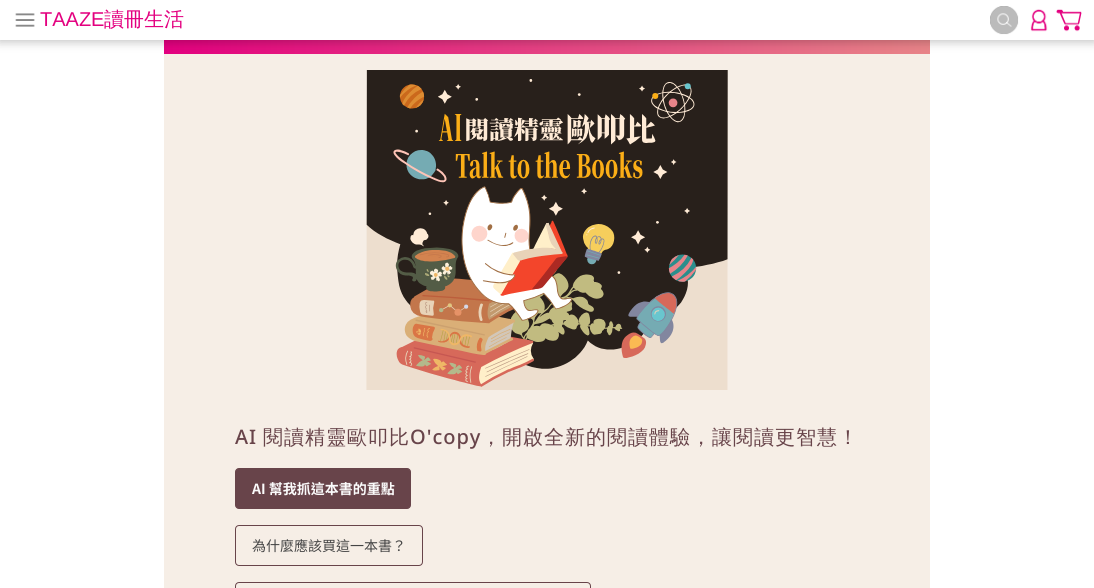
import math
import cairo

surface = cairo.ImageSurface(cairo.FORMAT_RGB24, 1094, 588)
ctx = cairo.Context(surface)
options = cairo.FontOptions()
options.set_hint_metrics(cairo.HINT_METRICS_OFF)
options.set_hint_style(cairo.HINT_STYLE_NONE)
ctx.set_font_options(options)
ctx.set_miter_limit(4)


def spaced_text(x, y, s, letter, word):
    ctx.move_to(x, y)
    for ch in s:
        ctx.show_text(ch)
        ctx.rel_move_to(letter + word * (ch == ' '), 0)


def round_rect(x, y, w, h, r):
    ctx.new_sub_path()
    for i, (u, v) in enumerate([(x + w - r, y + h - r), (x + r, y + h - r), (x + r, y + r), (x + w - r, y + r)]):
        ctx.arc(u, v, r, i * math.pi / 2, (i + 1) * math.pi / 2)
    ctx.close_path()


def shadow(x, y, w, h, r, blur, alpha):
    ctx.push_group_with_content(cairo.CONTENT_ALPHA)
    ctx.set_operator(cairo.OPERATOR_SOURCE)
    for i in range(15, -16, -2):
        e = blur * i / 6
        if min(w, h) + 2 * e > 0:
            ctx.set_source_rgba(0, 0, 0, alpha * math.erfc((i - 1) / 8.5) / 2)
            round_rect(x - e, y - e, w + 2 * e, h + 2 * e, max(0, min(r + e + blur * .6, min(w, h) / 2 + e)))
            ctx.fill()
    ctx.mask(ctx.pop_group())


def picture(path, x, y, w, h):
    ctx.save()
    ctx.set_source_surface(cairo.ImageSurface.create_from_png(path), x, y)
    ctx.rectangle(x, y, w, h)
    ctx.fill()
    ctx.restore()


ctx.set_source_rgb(1, 1, 1)
ctx.paint()
gradient = cairo.LinearGradient(164, 30, 930, 29)
gradient.add_color_stop_rgba(0, 0.89, 0, 0.498, 1)
gradient.add_color_stop_rgba(1, 0.91, 0.518, 0.533, 1)
ctx.set_source(gradient)
ctx.rectangle(164, 40, 766, 14)
ctx.fill()
ctx.set_source_rgb(0.961, 0.933, 0.902)
ctx.rectangle(164, 54, 766, 534)
ctx.fill()
ctx.set_source_rgb(0, 0, 0)
shadow(-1, 0, 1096, 42, 0, 5, 0.24)
ctx.set_source_rgb(1, 1, 1)
ctx.rectangle(0, 0, 1094, 40)
ctx.fill()
picture("img1.png", 15, 13, 20, 14)
ctx.select_font_face("Liberation Sans")
ctx.set_font_size(20)
ctx.set_source_rgb(0.89, 0, 0.498)
ctx.move_to(40, 26)
ctx.show_text("TAAZE")
ctx.select_font_face("WenQuanYi Zen Hei Medium")
ctx.move_to(104, 26)
ctx.show_text("讀冊生活")
picture("img2.png", 990, 6, 29, 29)
picture("img3.png", 1030, 9, 18, 23)
picture("img4.png", 1056, 9, 26, 23)
picture("img5.png", 366, 70, 362, 320)
ctx.select_font_face("Noto Sans Medium")
ctx.set_source_rgb(0.408, 0.267, 0.29)
spaced_text(235, 444, "AI", 1, 0)
ctx.select_font_face("WenQuanYi Zen Hei Medium")
spaced_text(263, 444, "閱讀精靈歐叩比", 1, 0)
ctx.select_font_face("Noto Sans Medium")
spaced_text(410, 444, "O'copy", 1, 0)
ctx.select_font_face("WenQuanYi Zen Hei Medium")
spaced_text(481, 444, "，開啟全新的閱讀體驗，讓閱讀更智慧！", 1, 0)
round_rect(235.5, 468.5, 175, 40, 3.5)
ctx.fill_preserve()
ctx.set_line_width(1)
ctx.stroke()
ctx.select_font_face("Noto Sans TC", cairo.FONT_SLANT_NORMAL, cairo.FONT_WEIGHT_BOLD)
ctx.set_font_size(14)
ctx.set_source_rgb(0.984, 0.984, 0.984)
ctx.move_to(252, 494)
ctx.show_text("AI 幫我抓這本書的重點")
round_rect(235.5, 525.5, 187, 40, 3.5)
ctx.set_source_rgb(0.408, 0.267, 0.29)
ctx.stroke()
ctx.select_font_face("Noto Sans TC")
ctx.set_source_rgb(0.267, 0.267, 0.267)
ctx.move_to(252, 551)
ctx.show_text("為什麼應該買這一本書？")
round_rect(235.5, 582.5, 355, 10, 3.5)
ctx.set_source_rgb(0.408, 0.267, 0.29)
ctx.stroke()
surface.write_to_png("page.png")
